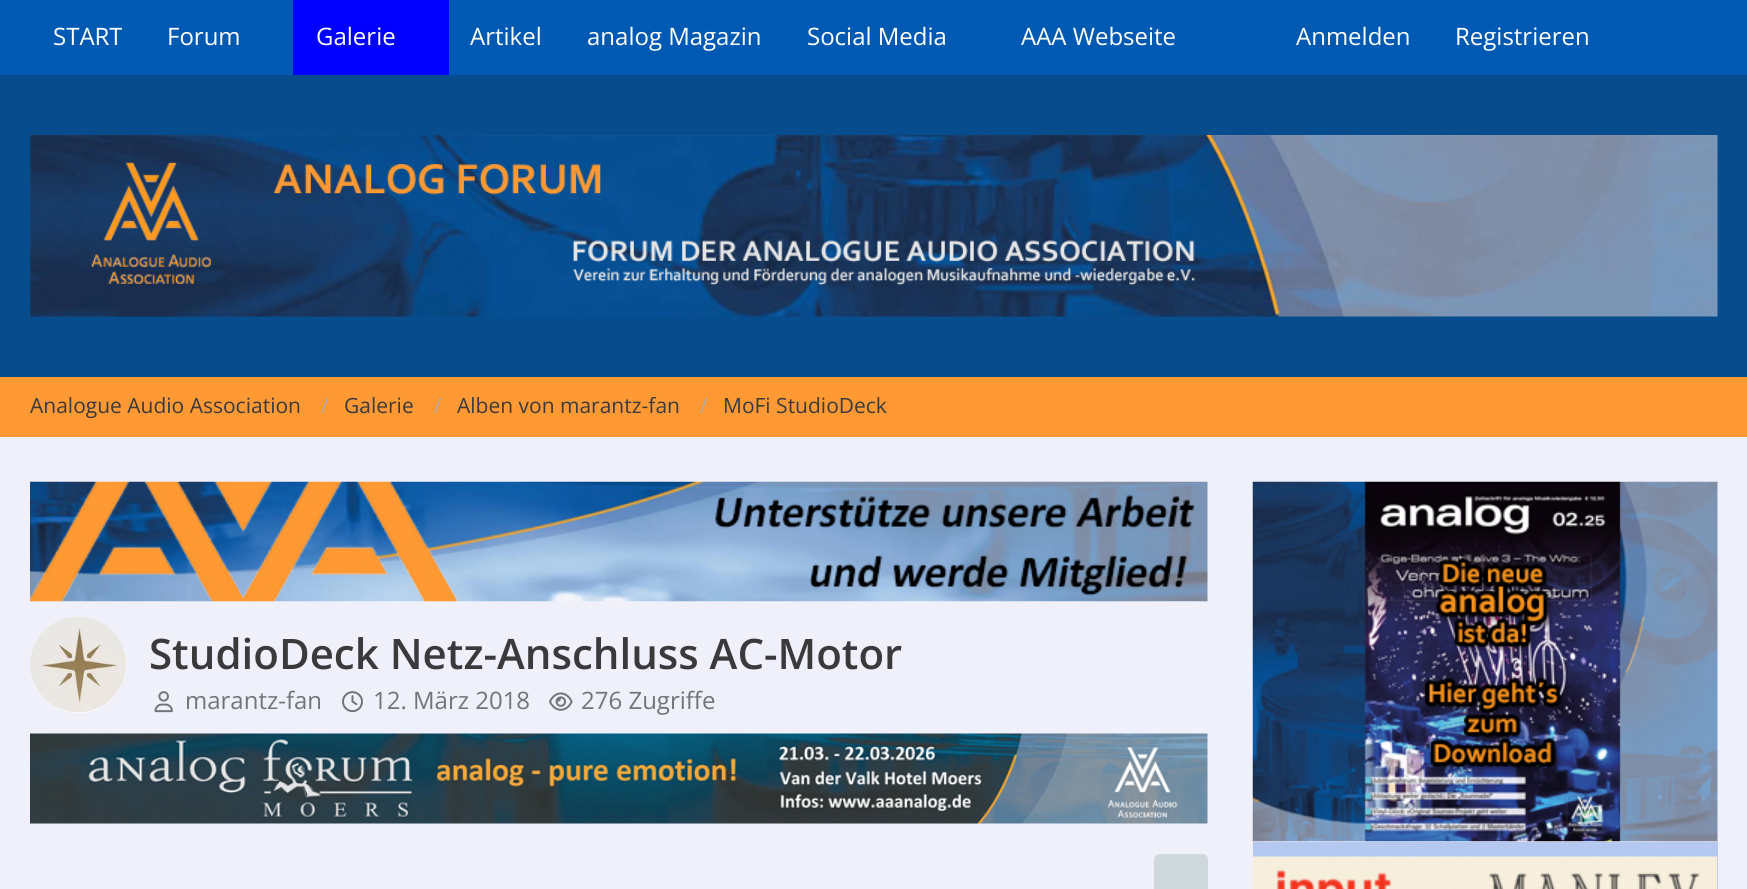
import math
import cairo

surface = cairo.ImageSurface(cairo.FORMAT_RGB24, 1747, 889)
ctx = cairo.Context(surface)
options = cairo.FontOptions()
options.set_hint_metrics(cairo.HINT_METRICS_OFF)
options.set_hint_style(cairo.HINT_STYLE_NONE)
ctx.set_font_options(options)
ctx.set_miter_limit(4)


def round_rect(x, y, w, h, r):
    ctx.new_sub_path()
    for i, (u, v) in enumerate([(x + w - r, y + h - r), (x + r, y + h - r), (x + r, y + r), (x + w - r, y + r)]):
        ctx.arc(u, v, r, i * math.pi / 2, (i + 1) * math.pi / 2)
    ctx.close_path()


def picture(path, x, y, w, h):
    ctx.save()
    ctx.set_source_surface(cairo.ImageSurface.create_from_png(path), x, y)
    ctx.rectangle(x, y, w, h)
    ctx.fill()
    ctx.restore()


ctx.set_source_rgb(0.941, 0.941, 0.98)
ctx.paint()
ctx.set_source_rgb(0.031, 0.302, 0.557)
ctx.rectangle(0, 75, 1747, 302)
ctx.fill()
ctx.set_source_rgb(0, 0.353, 0.702)
ctx.rectangle(0, 0, 1747, 75)
ctx.fill()
ctx.select_font_face("Open Sans")
ctx.set_font_size(24)
ctx.set_source_rgb(1, 1, 1)
ctx.move_to(53, 45)
ctx.show_text("START")
ctx.move_to(167, 45)
ctx.show_text("Forum")
ctx.set_source_rgb(0, 0, 1)
ctx.rectangle(293, 0, 156, 75)
ctx.fill()
ctx.set_source_rgb(1, 1, 1)
ctx.move_to(316, 45)
ctx.show_text("Galerie")
ctx.move_to(470, 45)
ctx.show_text("Artikel")
ctx.move_to(587, 45)
ctx.show_text("analog Magazin")
ctx.move_to(807, 45)
ctx.show_text("Social Media")
ctx.move_to(1021, 45)
ctx.show_text("AAA Webseite")
gradient = cairo.LinearGradient(1169, 38, 1244, 38)
gradient.add_color_stop_rgba(0, 0, 0.353, 0.702, 0)
gradient.add_color_stop_rgba(0.75, 0, 0.353, 0.702, 1)
ctx.set_source(gradient)
ctx.rectangle(1170, 32, 6, 13)
ctx.fill()
ctx.set_source_rgb(1, 1, 1)
ctx.move_to(1296, 45)
ctx.show_text("Anmelden")
ctx.move_to(1455, 45)
ctx.show_text("Registrieren")
picture("img1.png", 30, 135, 1688, 182)
ctx.set_source_rgb(1, 0.6, 0.2)
ctx.rectangle(0, 377, 1747, 60)
ctx.fill()
ctx.set_font_size(21)
ctx.set_source_rgb(0.227, 0.227, 0.239)
ctx.move_to(30, 413)
ctx.show_text("Analogue Audio Association")
ctx.set_source_rgb(0.667, 0.667, 0.667)
ctx.move_to(321, 413)
ctx.show_text("/")
ctx.set_source_rgb(0.227, 0.227, 0.239)
ctx.move_to(344, 413)
ctx.show_text("Galerie")
ctx.set_source_rgb(0.667, 0.667, 0.667)
ctx.move_to(434, 413)
ctx.show_text("/")
ctx.set_source_rgb(0.227, 0.227, 0.239)
ctx.move_to(457, 413)
ctx.show_text("Alben von marantz-fan")
ctx.set_source_rgb(0.667, 0.667, 0.667)
ctx.move_to(700, 413)
ctx.show_text("/")
ctx.set_source_rgb(0.227, 0.227, 0.239)
ctx.move_to(723, 413)
ctx.show_text("MoFi StudioDeck")
picture("img2.png", 30, 481, 1178, 121)
ctx.set_source_rgb(1, 1, 1)
ctx.arc(78, 665, 48, 0, 2 * math.pi)
ctx.fill()
picture("img3.png", 30, 616, 96, 97)
ctx.select_font_face("Open Sans SemiBold")
ctx.set_font_size(42)
ctx.set_source_rgb(0.227, 0.227, 0.239)
ctx.move_to(149, 669)
ctx.show_text("StudioDeck Netz-Anschluss AC-Motor")
picture("img4.png", 154, 691, 19, 22)
ctx.select_font_face("Open Sans")
ctx.set_font_size(24)
ctx.set_source_rgb(0.443, 0.459, 0.478)
ctx.move_to(185, 709)
ctx.show_text("marantz-fan")
picture("img5.png", 342, 691, 21, 22)
ctx.move_to(373, 709)
ctx.show_text("12. März 2018")
picture("img6.png", 549, 692, 24, 19)
ctx.move_to(581, 709)
ctx.show_text("276 Zugriffe")
picture("img7.png", 30, 733, 1178, 91)
ctx.set_source_rgb(0.812, 0.847, 0.863)
round_rect(1154, 854, 54, 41, 6)
ctx.fill()
picture("img8.png", 1252, 481, 466, 361)
ctx.set_source_rgb(0.706, 0.784, 0.941)
ctx.rectangle(1253, 842, 465, 47)
ctx.fill()
picture("img9.png", 1252, 856, 466, 33)
surface.write_to_png("page.png")
